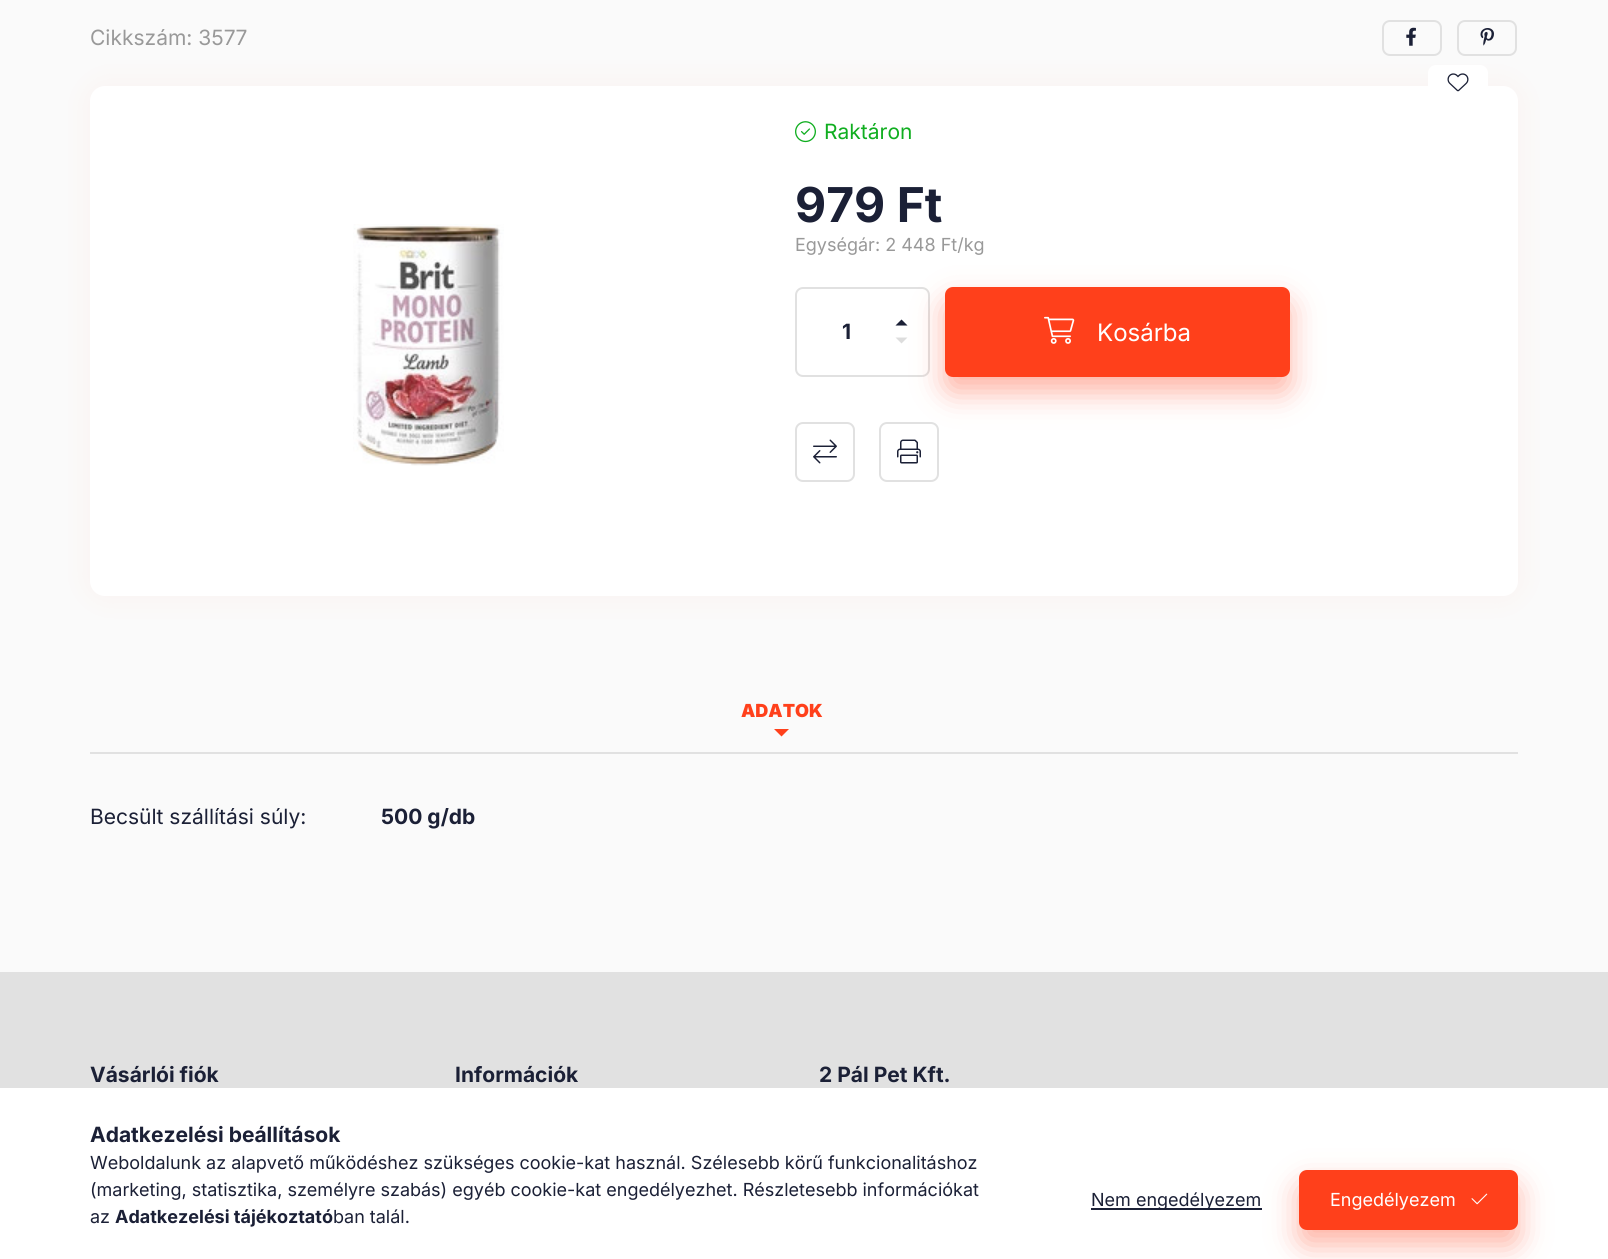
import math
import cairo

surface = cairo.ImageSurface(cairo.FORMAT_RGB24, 1608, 1259)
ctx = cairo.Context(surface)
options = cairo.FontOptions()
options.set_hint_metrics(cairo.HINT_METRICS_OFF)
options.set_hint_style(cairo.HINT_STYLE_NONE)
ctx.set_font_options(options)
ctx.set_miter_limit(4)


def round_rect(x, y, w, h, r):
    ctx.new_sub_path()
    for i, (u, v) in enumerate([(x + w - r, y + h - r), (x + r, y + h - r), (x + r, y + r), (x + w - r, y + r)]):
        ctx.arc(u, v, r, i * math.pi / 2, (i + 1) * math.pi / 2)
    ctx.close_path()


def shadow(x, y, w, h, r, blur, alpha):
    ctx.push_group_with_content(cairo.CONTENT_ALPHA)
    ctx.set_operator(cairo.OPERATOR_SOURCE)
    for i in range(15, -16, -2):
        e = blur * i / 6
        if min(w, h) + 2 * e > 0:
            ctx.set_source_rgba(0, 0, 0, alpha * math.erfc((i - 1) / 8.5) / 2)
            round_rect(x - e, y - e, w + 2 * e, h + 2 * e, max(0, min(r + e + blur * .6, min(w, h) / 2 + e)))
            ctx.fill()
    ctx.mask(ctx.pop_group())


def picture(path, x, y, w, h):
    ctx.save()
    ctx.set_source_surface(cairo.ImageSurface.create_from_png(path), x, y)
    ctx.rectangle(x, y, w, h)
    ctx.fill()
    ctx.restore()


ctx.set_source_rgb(0.98, 0.98, 0.98)
ctx.paint()
ctx.select_font_face("Inter")
ctx.set_font_size(21)
ctx.set_source_rgb(0.6, 0.6, 0.6)
ctx.move_to(90, 45)
ctx.show_text("Cikkszám: 3577")
round_rect(1383, 21, 58, 34, 7)
ctx.set_source_rgb(0.882, 0.882, 0.882)
ctx.stroke()
picture("img1.png", 1406, 27, 10, 19)
round_rect(1458, 21, 58, 34, 7)
ctx.stroke()
picture("img2.png", 1480, 28, 14, 18)
ctx.set_source_rgb(1, 0.251, 0.106)
shadow(90, 86, 1428, 510, 15, 15, 0.05)
ctx.set_source_rgb(1, 1, 1)
round_rect(90, 86, 1428, 510, 15)
ctx.fill()
round_rect(1428, 65, 60, 36, 8)
ctx.fill()
picture("img3.png", 1447, 73, 22, 19)
picture("img4.png", 353, 224, 151, 242)
picture("img5.png", 795, 121, 21, 22)
ctx.set_source_rgb(0.063, 0.682, 0.125)
ctx.move_to(824, 139)
ctx.show_text("Raktáron")
ctx.select_font_face("Inter", cairo.FONT_SLANT_NORMAL, cairo.FONT_WEIGHT_BOLD)
ctx.set_font_size(48)
ctx.set_source_rgb(0.106, 0.125, 0.212)
ctx.move_to(795, 222)
ctx.show_text("979 Ft")
ctx.select_font_face("Inter")
ctx.set_font_size(18)
ctx.set_source_rgb(0.6, 0.6, 0.6)
ctx.move_to(795, 251)
ctx.show_text("Egységár: 2 448 Ft/kg")
round_rect(796, 288, 133, 88, 7)
ctx.set_source_rgb(0.882, 0.882, 0.882)
ctx.stroke()
ctx.select_font_face("Inter", cairo.FONT_SLANT_NORMAL, cairo.FONT_WEIGHT_BOLD)
ctx.set_font_size(21)
ctx.set_source_rgb(0.106, 0.125, 0.212)
ctx.move_to(842, 339)
ctx.show_text("1")
ctx.new_path()
ctx.move_to(907.5, 325.5)
ctx.line_to(895.5, 325.5)
ctx.line_to(901.5, 319.5)
ctx.close_path()
ctx.fill()
ctx.set_source_rgb(0.867, 0.867, 0.867)
ctx.new_path()
ctx.move_to(895.5, 337.5)
ctx.line_to(907.5, 337.5)
ctx.line_to(901.5, 343.5)
ctx.close_path()
ctx.fill()
ctx.set_source_rgb(1, 0.251, 0.106)
shadow(945, 302, 345, 90, 8, 15, 0.4)
ctx.set_source_rgb(1, 0.251, 0.106)
round_rect(945, 287, 345, 90, 8)
ctx.fill()
picture("img6.png", 1044, 316, 31, 28)
ctx.select_font_face("Inter")
ctx.set_font_size(24)
ctx.set_source_rgb(1, 1, 1)
ctx.move_to(1097, 341)
ctx.show_text("Kosárba")
round_rect(796, 423, 58, 58, 7)
ctx.set_source_rgb(0.882, 0.882, 0.882)
ctx.stroke()
picture("img7.png", 813, 439, 24, 25)
round_rect(880, 423, 58, 58, 7)
ctx.stroke()
picture("img8.png", 897, 439, 24, 25)
ctx.rectangle(90, 752, 1428, 2)
ctx.fill()
ctx.select_font_face("Inter Black")
ctx.set_font_size(18)
ctx.set_source_rgb(1, 0.251, 0.106)
ctx.move_to(741, 717)
ctx.show_text("ADATOK")
ctx.new_path()
ctx.move_to(774, 729)
ctx.line_to(789, 729)
ctx.line_to(781.5, 736.5)
ctx.close_path()
ctx.fill()
ctx.select_font_face("Inter")
ctx.set_font_size(21)
ctx.set_source_rgb(0.106, 0.125, 0.212)
ctx.move_to(90, 824)
ctx.show_text("Becsült szállítási súly:")
ctx.select_font_face("Inter", cairo.FONT_SLANT_NORMAL, cairo.FONT_WEIGHT_BOLD)
ctx.move_to(381, 824)
ctx.show_text("500 g/db")
ctx.set_source_rgb(0.882, 0.882, 0.882)
ctx.rectangle(0, 972, 1608, 116)
ctx.fill()
ctx.set_source_rgb(0.106, 0.125, 0.212)
ctx.move_to(90, 1082)
ctx.show_text("Vásárlói fiók")
ctx.move_to(455, 1082)
ctx.show_text("Információk")
ctx.move_to(819, 1082)
ctx.show_text("2 Pál Pet Kft.")
ctx.set_source_rgb(1, 1, 1)
ctx.rectangle(0, 1088, 1608, 171)
ctx.fill()
ctx.set_source_rgb(0.106, 0.125, 0.212)
ctx.move_to(90, 1142)
ctx.show_text("Adatkezelési beállítások")
ctx.select_font_face("Inter")
ctx.set_font_size(18)
ctx.move_to(90, 1169)
ctx.show_text("Weboldalunk az alapvető működéshez szükséges cookie-kat használ. Szélesebb körű funkcionalitáshoz")
ctx.move_to(90, 1196)
ctx.show_text("(marketing, statisztika, személyre szabás) egyéb cookie-kat engedélyezhet. Részletesebb információkat")
ctx.move_to(90, 1223)
ctx.show_text("az")
ctx.select_font_face("Inter", cairo.FONT_SLANT_NORMAL, cairo.FONT_WEIGHT_BOLD)
ctx.move_to(115, 1223)
ctx.show_text("Adatkezelési tájékoztató")
ctx.select_font_face("Inter")
ctx.move_to(333, 1223)
ctx.show_text("ban talál.")
ctx.rectangle(1091, 1208, 171, 2)
ctx.fill()
ctx.move_to(1091, 1206)
ctx.show_text("Nem engedélyezem")
ctx.set_source_rgb(1, 0.251, 0.106)
shadow(1299, 1185, 219, 60, 8, 15, 0.4)
ctx.set_source_rgb(1, 0.251, 0.106)
round_rect(1300, 1171, 217, 58, 7)
ctx.fill_preserve()
ctx.stroke()
ctx.set_source_rgb(1, 1, 1)
ctx.move_to(1330, 1206)
ctx.show_text("Engedélyezem")
picture("img9.png", 1471, 1193, 17, 12)
surface.write_to_png("page.png")
